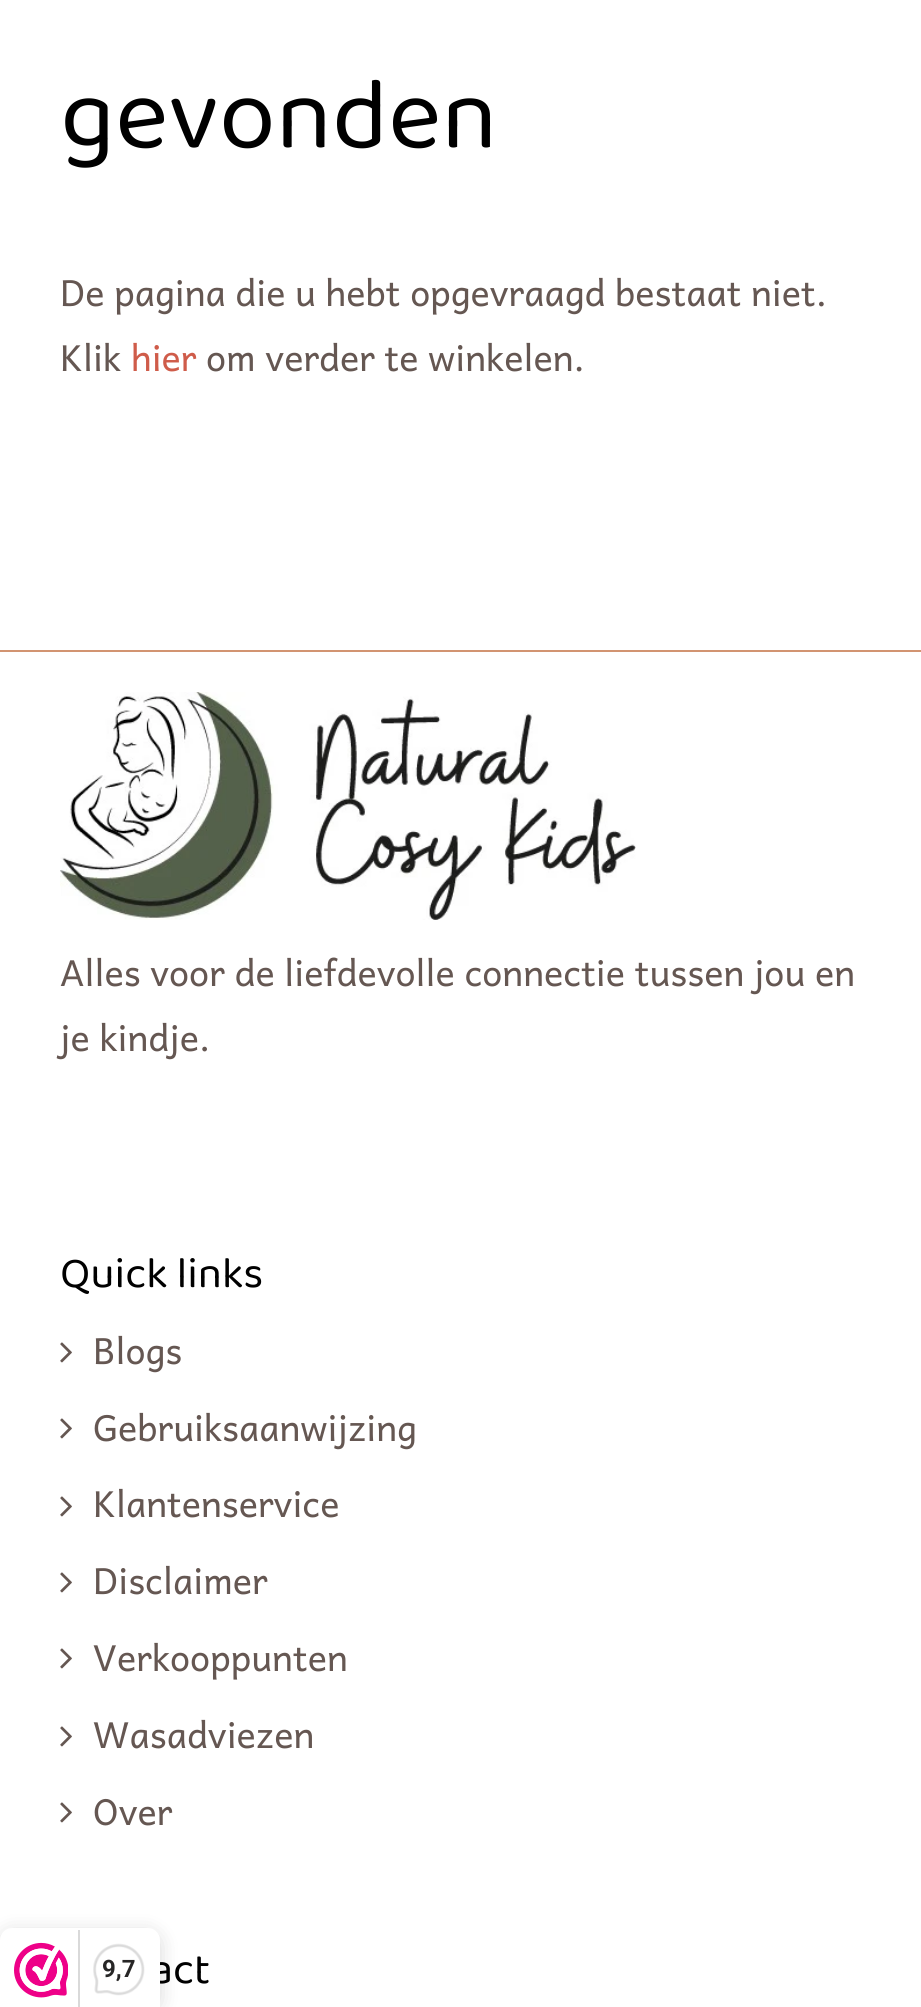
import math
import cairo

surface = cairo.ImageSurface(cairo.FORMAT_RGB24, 921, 2007)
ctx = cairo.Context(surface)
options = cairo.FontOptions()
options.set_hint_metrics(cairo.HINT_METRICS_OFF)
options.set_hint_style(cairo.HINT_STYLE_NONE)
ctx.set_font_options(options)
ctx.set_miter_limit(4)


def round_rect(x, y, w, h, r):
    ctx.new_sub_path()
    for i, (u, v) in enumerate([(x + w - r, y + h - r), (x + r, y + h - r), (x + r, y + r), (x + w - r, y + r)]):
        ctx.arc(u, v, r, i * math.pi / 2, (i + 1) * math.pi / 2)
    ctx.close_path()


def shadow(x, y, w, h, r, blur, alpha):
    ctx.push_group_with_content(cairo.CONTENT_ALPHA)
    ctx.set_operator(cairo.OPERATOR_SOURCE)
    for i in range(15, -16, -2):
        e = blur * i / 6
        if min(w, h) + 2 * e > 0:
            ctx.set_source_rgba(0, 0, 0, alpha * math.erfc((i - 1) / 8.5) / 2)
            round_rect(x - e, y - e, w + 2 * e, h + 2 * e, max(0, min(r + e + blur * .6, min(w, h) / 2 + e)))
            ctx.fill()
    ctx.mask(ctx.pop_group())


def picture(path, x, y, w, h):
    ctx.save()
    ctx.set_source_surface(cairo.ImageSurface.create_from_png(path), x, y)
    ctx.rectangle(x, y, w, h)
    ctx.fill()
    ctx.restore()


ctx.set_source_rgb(1, 1, 1)
ctx.paint()
ctx.select_font_face("Baloo Chettan 2")
ctx.set_font_size(102.5)
ctx.set_source_rgb(0, 0, 0)
ctx.move_to(60, 147)
ctx.show_text("gevonden")
ctx.select_font_face("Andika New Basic")
ctx.set_font_size(36)
ctx.set_source_rgb(0.396, 0.341, 0.322)
ctx.move_to(60, 306)
ctx.show_text("De pagina die u hebt opgevraagd bestaat niet.")
ctx.move_to(60, 371)
ctx.show_text("Klik")
ctx.set_source_rgb(0.812, 0.361, 0.29)
ctx.move_to(131, 371)
ctx.show_text("hier")
ctx.set_source_rgb(0.396, 0.341, 0.322)
ctx.move_to(206, 371)
ctx.show_text("om verder te winkelen.")
ctx.set_source_rgb(0.824, 0.58, 0.443)
ctx.rectangle(0, 650, 921, 2)
ctx.fill()
picture("img1.png", 60, 692, 576, 228)
ctx.set_source_rgb(0.396, 0.341, 0.322)
ctx.move_to(60, 986)
ctx.show_text("Alles voor de liefdevolle connectie tussen jou en")
ctx.move_to(60, 1051)
ctx.show_text("je kindje.")
ctx.select_font_face("Baloo Chettan 2")
ctx.set_font_size(44)
ctx.set_source_rgb(0, 0, 0)
ctx.move_to(60, 1287)
ctx.show_text("Quick links")
picture("img2.png", 60, 1342, 12, 21)
ctx.select_font_face("Andika New Basic")
ctx.set_font_size(36)
ctx.set_source_rgb(0.396, 0.341, 0.322)
ctx.move_to(93, 1364)
ctx.show_text("Blogs")
picture("img2.png", 60, 1418, 12, 21)
ctx.move_to(93, 1441)
ctx.show_text("Gebruiksaanwijzing")
picture("img2.png", 60, 1496, 12, 21)
ctx.move_to(93, 1517)
ctx.show_text("Klantenservice")
picture("img2.png", 60, 1572, 12, 21)
ctx.move_to(93, 1594)
ctx.show_text("Disclaimer")
picture("img2.png", 60, 1648, 12, 21)
ctx.move_to(93, 1671)
ctx.show_text("Verkooppunten")
picture("img2.png", 60, 1726, 12, 21)
ctx.move_to(93, 1748)
ctx.show_text("Wasadviezen")
picture("img2.png", 60, 1802, 12, 21)
ctx.move_to(93, 1825)
ctx.show_text("Over")
ctx.select_font_face("Baloo Chettan 2")
ctx.set_font_size(44)
ctx.set_source_rgb(0, 0, 0)
ctx.move_to(151, 1983)
ctx.show_text("act")
ctx.set_source_rgb(0, 0, 0)
shadow(0, 1932, 160, 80, 12, 10, 0.15)
ctx.set_source_rgb(1, 1, 1)
ctx.new_path()
ctx.move_to(12, 1928)
ctx.line_to(148, 1928)
ctx.curve_to(154.5, 1928, 160, 1933.5, 160, 1940)
ctx.line_to(160, 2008)
ctx.line_to(0, 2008)
ctx.line_to(0, 1940)
ctx.curve_to(0, 1933.5, 5.5, 1928, 12, 1928)
ctx.close_path()
ctx.fill()
picture("img3.png", 14, 1942, 54, 56)
ctx.set_source_rgb(0.851, 0.851, 0.851)
ctx.rectangle(78, 1930, 2, 77)
ctx.fill()
picture("img4.png", 93, 1943, 52, 53)
ctx.select_font_face("Roboto", cairo.FONT_SLANT_NORMAL, cairo.FONT_WEIGHT_BOLD)
ctx.set_font_size(24)
ctx.set_source_rgb(0.153, 0.149, 0.149)
ctx.move_to(102, 1977)
ctx.show_text("9,7")
surface.write_to_png("page.png")
